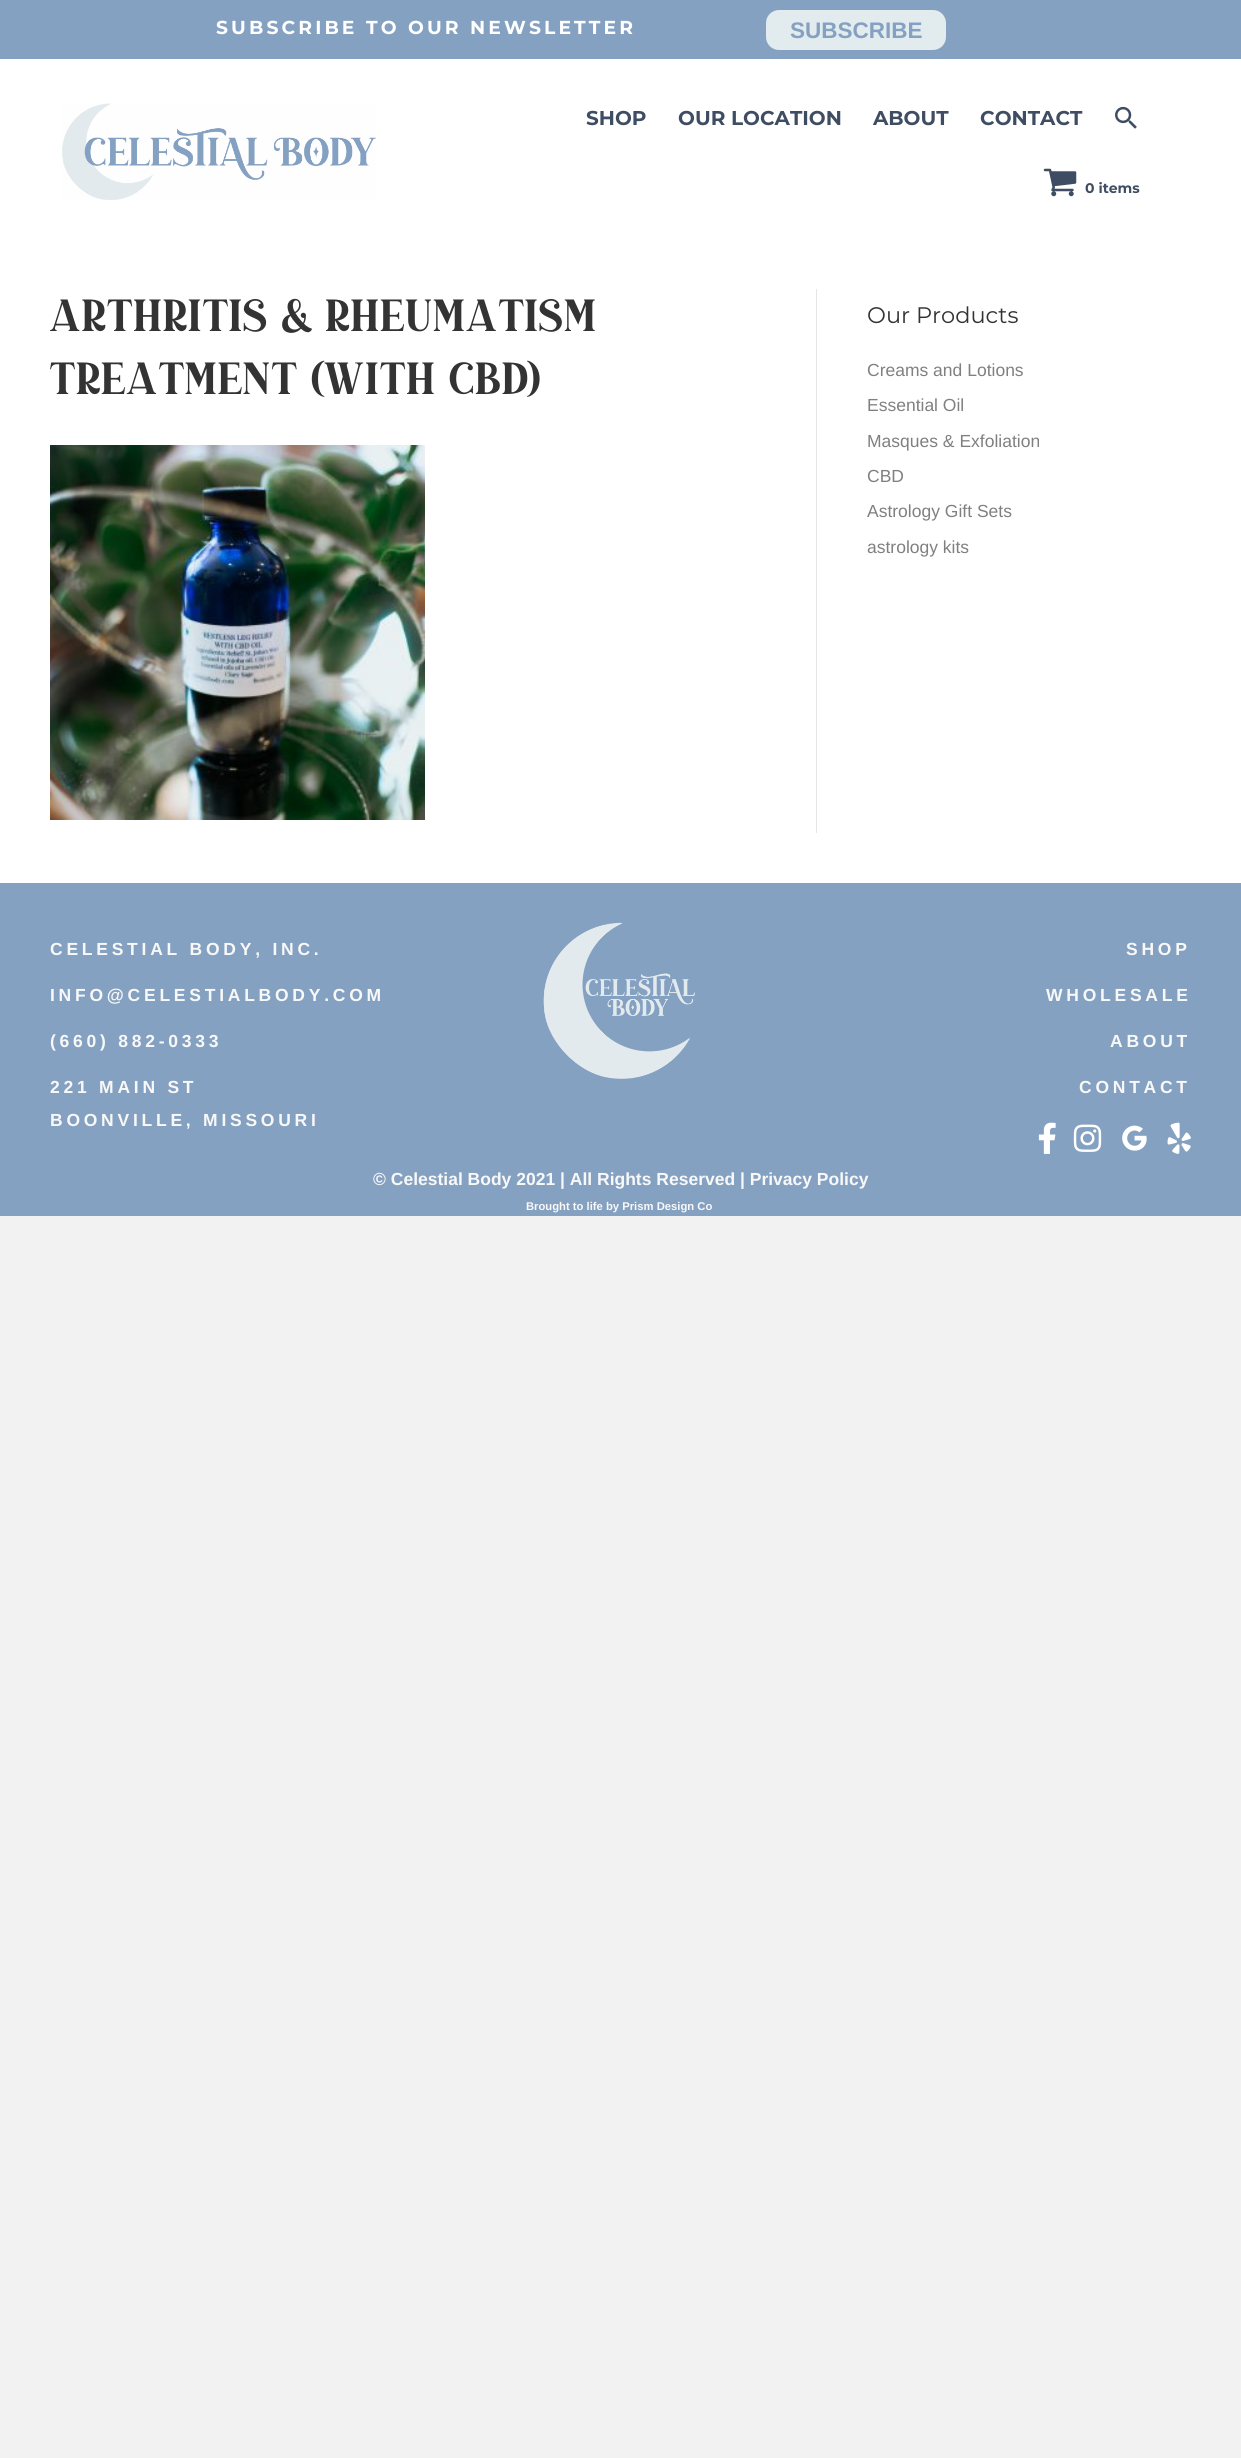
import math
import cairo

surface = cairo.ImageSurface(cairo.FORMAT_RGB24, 1241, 2458)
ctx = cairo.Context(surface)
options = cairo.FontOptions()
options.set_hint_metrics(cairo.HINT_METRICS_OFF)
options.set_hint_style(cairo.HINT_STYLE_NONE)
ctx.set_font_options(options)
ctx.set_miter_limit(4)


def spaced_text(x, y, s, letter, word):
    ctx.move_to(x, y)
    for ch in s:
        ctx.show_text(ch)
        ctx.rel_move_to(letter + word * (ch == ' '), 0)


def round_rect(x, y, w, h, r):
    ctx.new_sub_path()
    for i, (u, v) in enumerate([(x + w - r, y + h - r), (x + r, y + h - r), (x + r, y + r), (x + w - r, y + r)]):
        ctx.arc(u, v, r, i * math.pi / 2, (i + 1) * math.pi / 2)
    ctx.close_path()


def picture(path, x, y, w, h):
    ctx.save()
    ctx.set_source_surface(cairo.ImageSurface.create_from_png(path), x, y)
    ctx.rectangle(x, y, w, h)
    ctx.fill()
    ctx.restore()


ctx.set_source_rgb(0.949, 0.949, 0.949)
ctx.paint()
ctx.set_source_rgb(0.522, 0.631, 0.757)
ctx.rectangle(0, 0, 1241, 59)
ctx.fill()
ctx.select_font_face("Montserrat", cairo.FONT_SLANT_NORMAL, cairo.FONT_WEIGHT_BOLD)
ctx.set_font_size(18.75)
ctx.set_source_rgb(1, 1, 1)
spaced_text(216, 34, "SUBSCRIBE TO OUR NEWSLETTER", 3.1, 0)
ctx.set_source_rgb(0.886, 0.918, 0.929)
round_rect(766, 10, 180, 40, 13)
ctx.fill()
ctx.select_font_face("Liberation Sans", cairo.FONT_SLANT_NORMAL, cairo.FONT_WEIGHT_BOLD)
ctx.set_font_size(22.5)
ctx.set_source_rgb(0.522, 0.631, 0.757)
ctx.move_to(790, 38)
ctx.show_text("SUBSCRIBE")
ctx.set_source_rgb(1, 1, 1)
ctx.rectangle(0, 59, 1241, 824)
ctx.fill()
picture("img1.png", 62, 103, 314, 97)
ctx.select_font_face("Montserrat", cairo.FONT_SLANT_NORMAL, cairo.FONT_WEIGHT_BOLD)
ctx.set_font_size(20)
ctx.set_source_rgb(0.247, 0.302, 0.388)
ctx.move_to(586, 125)
ctx.show_text("SHOP")
ctx.move_to(678, 125)
ctx.show_text("OUR LOCATION")
ctx.move_to(873, 125)
ctx.show_text("ABOUT")
ctx.move_to(980, 125)
ctx.show_text("CONTACT")
picture("img2.png", 1115, 106, 22, 23)
picture("img3.png", 1043, 168, 34, 29)
ctx.set_font_size(14)
ctx.move_to(1085, 193)
ctx.show_text("0 items")
ctx.set_source_rgb(0.902, 0.902, 0.902)
ctx.rectangle(816, 289, 1, 544)
ctx.fill()
ctx.select_font_face("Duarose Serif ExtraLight")
ctx.set_font_size(45)
ctx.set_source_rgb(0.2, 0.2, 0.2)
ctx.move_to(50, 331)
ctx.show_text("Arthritis & Rheumatism")
ctx.move_to(50, 394)
ctx.show_text("Treatment (with CBD)")
picture("img4.png", 50, 445, 375, 375)
ctx.select_font_face("Montserrat")
ctx.set_font_size(22.5)
ctx.move_to(867, 323)
ctx.show_text("Our Products")
ctx.select_font_face("Liberation Sans")
ctx.set_font_size(17.5)
ctx.set_source_rgb(0.502, 0.502, 0.502)
ctx.move_to(867, 376)
ctx.show_text("Creams and Lotions")
ctx.move_to(867, 411)
ctx.show_text("Essential Oil")
ctx.move_to(867, 447)
ctx.show_text("Masques & Exfoliation")
ctx.move_to(867, 482)
ctx.show_text("CBD")
ctx.move_to(867, 517)
ctx.show_text("Astrology Gift Sets")
ctx.move_to(867, 553)
ctx.show_text("astrology kits")
ctx.set_source_rgb(0.522, 0.631, 0.757)
ctx.rectangle(0, 883, 1241, 333)
ctx.fill()
ctx.select_font_face("Liberation Sans", cairo.FONT_SLANT_NORMAL, cairo.FONT_WEIGHT_BOLD)
ctx.set_source_rgb(0.969, 0.969, 0.969)
spaced_text(50, 955, "CELESTIAL BODY, INC.", 3.75, 0)
spaced_text(50, 1001, "INFO@CELESTIALBODY.COM", 3.75, 0)
spaced_text(50, 1047, "(660) 882-0333", 3.75, 0)
spaced_text(50, 1093, "221 MAIN ST", 3.75, 0)
spaced_text(50, 1126, "BOONVILLE, MISSOURI", 3.75, 0)
picture("img5.png", 543, 922, 152, 157)
spaced_text(1126, 955, "SHOP", 3.75, 0)
spaced_text(1046, 1001, "WHOLESALE", 3.75, 0)
spaced_text(1110, 1047, "ABOUT", 3.75, 0)
spaced_text(1079, 1093, "CONTACT", 3.75, 0)
picture("img6.png", 1038, 1122, 18, 32)
picture("img7.png", 1073, 1124, 29, 28)
picture("img8.png", 1122, 1125, 25, 26)
picture("img9.png", 1167, 1122, 24, 32)
ctx.move_to(373, 1185)
ctx.show_text("© Celestial Body 2021 | All Rights Reserved | Privacy Policy")
ctx.set_font_size(11.25)
ctx.move_to(526, 1210)
ctx.show_text("Brought to life by Prism Design Co")
surface.write_to_png("page.png")
